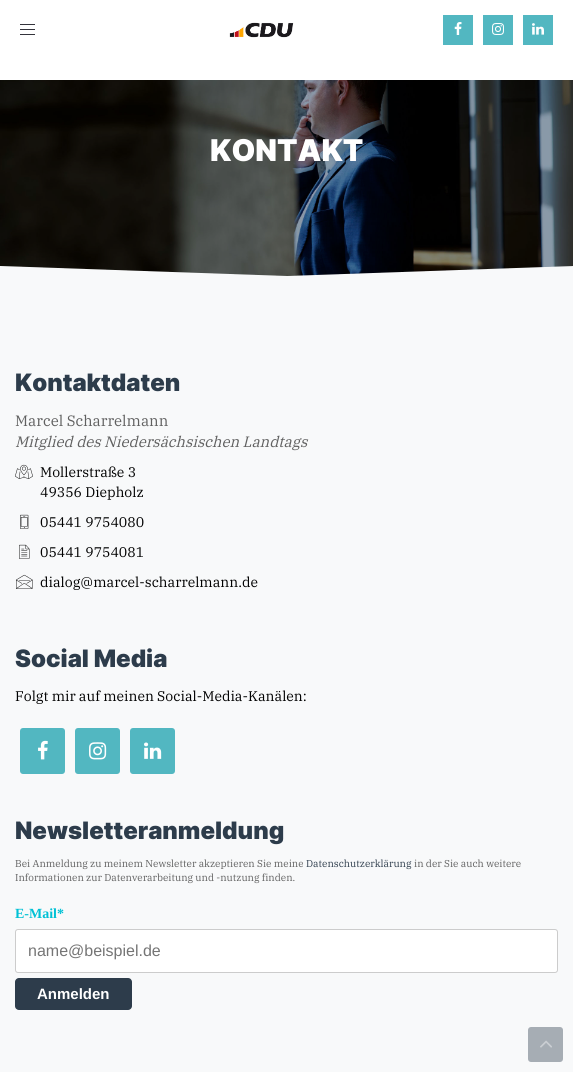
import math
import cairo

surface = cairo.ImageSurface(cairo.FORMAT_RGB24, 573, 1072)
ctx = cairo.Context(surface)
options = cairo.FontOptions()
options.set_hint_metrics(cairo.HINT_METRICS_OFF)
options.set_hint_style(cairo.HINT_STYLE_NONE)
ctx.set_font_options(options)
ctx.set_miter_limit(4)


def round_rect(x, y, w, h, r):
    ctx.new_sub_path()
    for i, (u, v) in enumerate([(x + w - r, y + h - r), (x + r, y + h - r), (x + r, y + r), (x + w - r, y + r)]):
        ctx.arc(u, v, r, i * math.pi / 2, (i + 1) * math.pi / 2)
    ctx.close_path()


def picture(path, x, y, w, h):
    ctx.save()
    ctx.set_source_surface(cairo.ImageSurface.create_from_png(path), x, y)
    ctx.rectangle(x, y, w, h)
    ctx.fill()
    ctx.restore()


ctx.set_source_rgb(1, 1, 1)
ctx.paint()
ctx.set_source_rgb(0.204, 0.204, 0.235)
ctx.rectangle(20, 34, 15, 1)
ctx.fill()
ctx.rectangle(20, 24, 15, 1)
ctx.fill()
ctx.rectangle(20, 29, 15, 1)
ctx.fill()
picture("img1.png", 229, 22, 65, 16)
ctx.set_source_rgb(0.322, 0.718, 0.757)
ctx.rectangle(443, 15, 30, 30)
ctx.fill()
picture("img2.png", 454, 22, 8, 13)
ctx.rectangle(483, 15, 30, 30)
ctx.fill()
picture("img3.png", 492, 23, 12, 12)
ctx.rectangle(523, 15, 30, 30)
ctx.fill()
picture("img4.png", 532, 23, 12, 12)
picture("img5.png", 0, 80, 573, 196)
ctx.set_source_rgb(0.969, 0.973, 0.98)
ctx.new_path()
ctx.move_to(573, 286)
ctx.line_to(0, 286)
ctx.line_to(573, 266)
ctx.close_path()
ctx.fill()
ctx.new_path()
ctx.move_to(573, 286)
ctx.line_to(0, 286)
ctx.line_to(0, 266)
ctx.close_path()
ctx.fill()
ctx.select_font_face("Inter Black")
ctx.set_font_size(30)
ctx.set_source_rgb(1, 1, 1)
ctx.move_to(210, 161)
ctx.show_text("KONTAKT")
ctx.set_source_rgb(0.969, 0.973, 0.98)
ctx.rectangle(0, 286, 573, 786)
ctx.fill()
ctx.set_font_size(24)
ctx.set_source_rgb(0.176, 0.235, 0.294)
ctx.move_to(15, 391)
ctx.show_text("Kontaktdaten")
ctx.select_font_face("IBM Plex Serif")
ctx.set_font_size(15)
ctx.set_source_rgb(0.376, 0.376, 0.376)
ctx.move_to(15, 426)
ctx.show_text("Marcel Scharrelmann")
ctx.select_font_face("IBM Plex Serif", cairo.FONT_SLANT_ITALIC)
ctx.move_to(15, 447)
ctx.show_text("Mitglied des Niedersächsischen Landtags")
picture("img6.png", 15, 464, 18, 15)
ctx.select_font_face("IBM Plex Serif")
ctx.set_font_size(14)
ctx.set_source_rgb(0, 0, 0)
ctx.move_to(40, 477)
ctx.show_text("Mollerstraße 3")
ctx.move_to(40, 497)
ctx.show_text("49356 Diepholz")
picture("img7.png", 20, 514, 9, 15)
ctx.move_to(40, 527)
ctx.show_text("05441 9754080")
picture("img8.png", 19, 544, 11, 15)
ctx.move_to(40, 557)
ctx.show_text("05441 9754081")
picture("img9.png", 16, 574, 17, 15)
ctx.move_to(40, 587)
ctx.show_text("dialog@marcel-scharrelmann.de")
ctx.select_font_face("Inter Black")
ctx.set_font_size(24)
ctx.set_source_rgb(0.176, 0.235, 0.294)
ctx.move_to(15, 667)
ctx.show_text("Social Media")
ctx.select_font_face("IBM Plex Serif")
ctx.set_font_size(14)
ctx.set_source_rgb(0, 0, 0)
ctx.move_to(15, 701)
ctx.show_text("Folgt mir auf meinen Social-Media-Kanälen:")
ctx.set_source_rgb(0.322, 0.718, 0.757)
round_rect(20, 728, 45, 46, 3)
ctx.fill()
picture("img10.png", 38, 740, 10, 20)
round_rect(75, 728, 45, 46, 3)
ctx.fill()
picture("img11.png", 89, 742, 18, 18)
round_rect(130, 728, 45, 46, 3)
ctx.fill()
picture("img12.png", 144, 742, 18, 17)
ctx.select_font_face("Inter Black")
ctx.set_font_size(24)
ctx.set_source_rgb(0.176, 0.235, 0.294)
ctx.move_to(15, 839)
ctx.show_text("Newsletteranmeldung")
ctx.select_font_face("IBM Plex Serif")
ctx.set_font_size(10)
ctx.set_source_rgb(0.376, 0.376, 0.376)
ctx.move_to(15, 867)
ctx.show_text("Bei Anmeldung zu meinem Newsletter akzeptieren Sie meine")
ctx.set_source_rgb(0.176, 0.235, 0.294)
ctx.move_to(306, 867)
ctx.show_text("Datenschutzerklärung")
ctx.set_source_rgb(0.376, 0.376, 0.376)
ctx.move_to(414, 867)
ctx.show_text("in der Sie auch weitere")
ctx.move_to(15, 881)
ctx.show_text("Informationen zur Datenverarbeitung und -nutzung finden.")
ctx.select_font_face("Liberation Serif", cairo.FONT_SLANT_NORMAL, cairo.FONT_WEIGHT_BOLD)
ctx.set_font_size(14)
ctx.set_source_rgb(0, 0.757, 0.835)
ctx.move_to(15, 918)
ctx.show_text("E-Mail*")
ctx.set_source_rgb(1, 1, 1)
round_rect(15.5, 929.5, 542, 43, 2.5)
ctx.fill_preserve()
ctx.set_source_rgb(0.8, 0.8, 0.8)
ctx.set_line_width(1)
ctx.stroke()
ctx.select_font_face("Liberation Sans")
ctx.set_font_size(16)
ctx.set_source_rgb(0.459, 0.459, 0.459)
ctx.move_to(28, 956)
ctx.show_text("name@beispiel.de")
ctx.set_source_rgb(0.176, 0.235, 0.294)
round_rect(15, 978, 117, 32, 4)
ctx.fill()
ctx.select_font_face("Liberation Sans", cairo.FONT_SLANT_NORMAL, cairo.FONT_WEIGHT_BOLD)
ctx.set_font_size(15)
ctx.set_source_rgb(1, 1, 1)
ctx.move_to(37, 999)
ctx.show_text("Anmelden")
ctx.set_source_rgb(0.651, 0.678, 0.706)
round_rect(528, 1027, 35, 35, 3)
ctx.fill()
picture("img13.png", 540, 1040, 12, 8)
surface.write_to_png("page.png")
